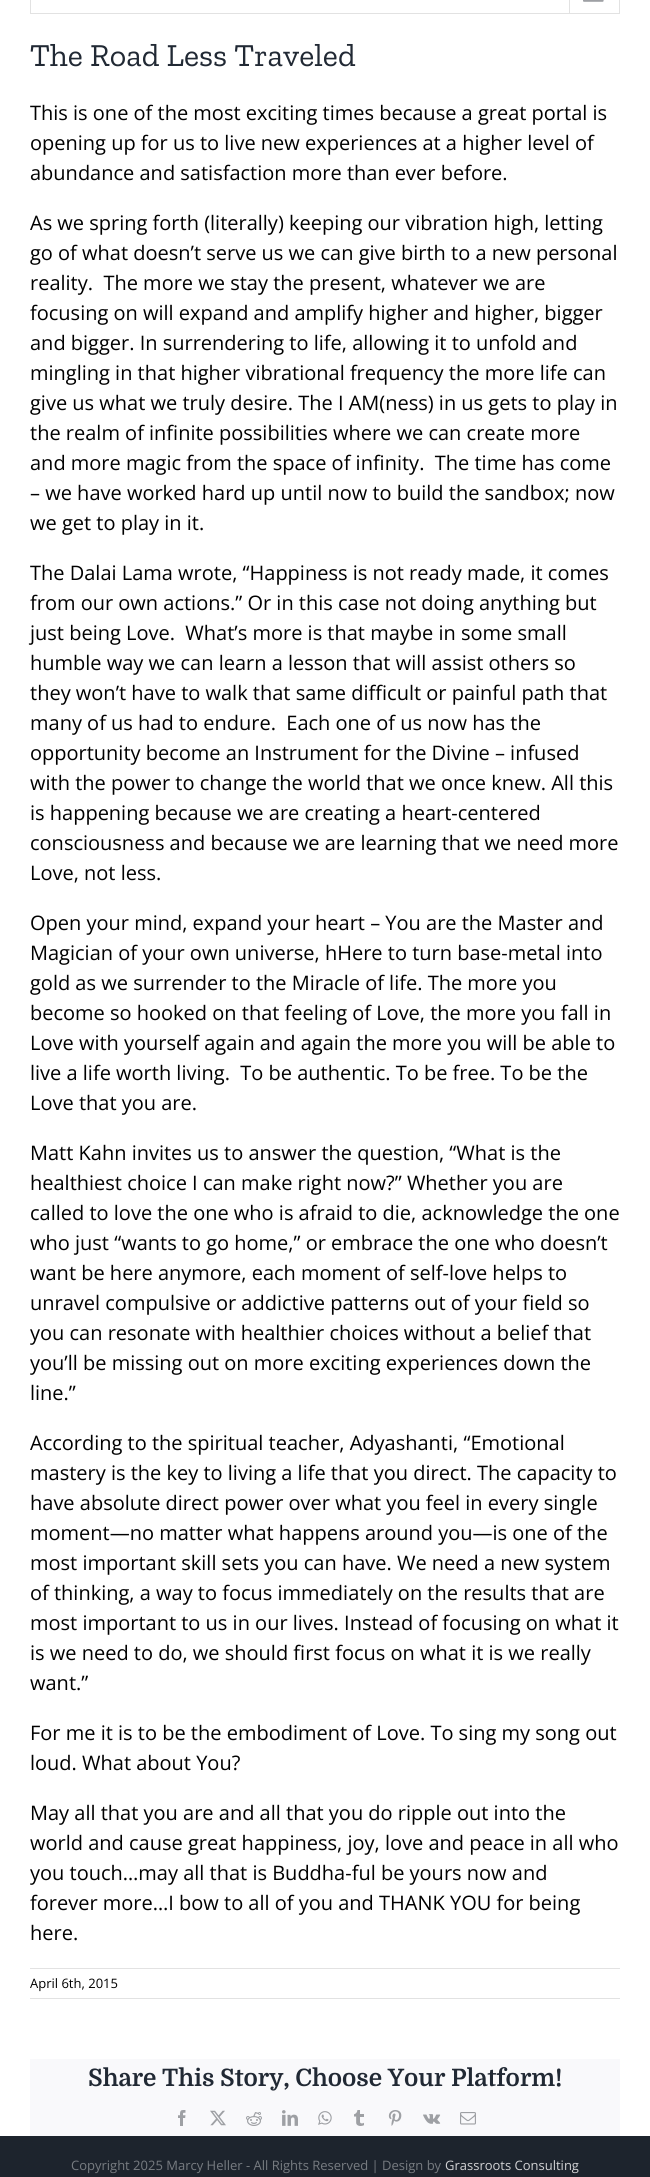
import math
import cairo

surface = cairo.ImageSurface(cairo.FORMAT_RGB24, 650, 2177)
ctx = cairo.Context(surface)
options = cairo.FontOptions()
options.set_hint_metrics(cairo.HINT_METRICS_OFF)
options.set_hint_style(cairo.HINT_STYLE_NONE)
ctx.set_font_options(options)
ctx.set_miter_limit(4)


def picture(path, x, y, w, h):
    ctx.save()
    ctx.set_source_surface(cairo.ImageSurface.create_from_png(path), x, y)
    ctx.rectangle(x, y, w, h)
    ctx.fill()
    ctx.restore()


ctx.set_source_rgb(1, 1, 1)
ctx.paint()
ctx.rectangle(30.5, -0.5, 589, 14)
ctx.set_source_rgb(0.886, 0.886, 0.886)
ctx.set_line_width(1)
ctx.stroke()
ctx.rectangle(569, 0, 1, 13)
ctx.fill()
picture("img1.png", 583, 0, 21, 2)
ctx.select_font_face("Zilla Slab")
ctx.set_font_size(32)
ctx.set_source_rgb(0.129, 0.161, 0.204)
ctx.move_to(30, 66)
ctx.show_text("The Road Less Traveled")
ctx.select_font_face("Open Sans")
ctx.set_font_size(20)
ctx.set_source_rgb(0, 0, 0)
ctx.move_to(30, 120)
ctx.show_text("This is one of the most exciting times because a great portal is")
ctx.move_to(30, 150)
ctx.show_text("opening up for us to live new experiences at a higher level of")
ctx.move_to(30, 180)
ctx.show_text("abundance and satisfaction more than ever before.")
ctx.move_to(30, 230)
ctx.show_text("As we spring forth (literally) keeping our vibration high, letting")
ctx.move_to(30, 260)
ctx.show_text("go of what doesn’t serve us we can give birth to a new personal")
ctx.move_to(30, 290)
ctx.show_text("reality.  The more we stay the present, whatever we are")
ctx.move_to(30, 320)
ctx.show_text("focusing on will expand and amplify higher and higher, bigger")
ctx.move_to(30, 350)
ctx.show_text("and bigger. In surrendering to life, allowing it to unfold and")
ctx.move_to(30, 380)
ctx.show_text("mingling in that higher vibrational frequency the more life can")
ctx.move_to(30, 410)
ctx.show_text("give us what we truly desire. The I AM(ness) in us gets to play in")
ctx.move_to(30, 440)
ctx.show_text("the realm of infinite possibilities where we can create more")
ctx.move_to(30, 470)
ctx.show_text("and more magic from the space of infinity.  The time has come")
ctx.move_to(30, 500)
ctx.show_text("– we have worked hard up until now to build the sandbox; now")
ctx.move_to(30, 530)
ctx.show_text("we get to play in it.")
ctx.move_to(30, 580)
ctx.show_text("The Dalai Lama wrote, “Happiness is not ready made, it comes")
ctx.move_to(30, 610)
ctx.show_text("from our own actions.” Or in this case not doing anything but")
ctx.move_to(30, 640)
ctx.show_text("just being Love.  What’s more is that maybe in some small")
ctx.move_to(30, 670)
ctx.show_text("humble way we can learn a lesson that will assist others so")
ctx.move_to(30, 700)
ctx.show_text("they won’t have to walk that same difficult or painful path that")
ctx.move_to(30, 730)
ctx.show_text("many of us had to endure.  Each one of us now has the")
ctx.move_to(30, 760)
ctx.show_text("opportunity become an Instrument for the Divine – infused")
ctx.move_to(30, 790)
ctx.show_text("with the power to change the world that we once knew. All this")
ctx.move_to(30, 820)
ctx.show_text("is happening because we are creating a heart-centered")
ctx.move_to(30, 850)
ctx.show_text("consciousness and because we are learning that we need more")
ctx.move_to(30, 880)
ctx.show_text("Love, not less.")
ctx.move_to(30, 930)
ctx.show_text("Open your mind, expand your heart – You are the Master and")
ctx.move_to(30, 960)
ctx.show_text("Magician of your own universe, hHere to turn base-metal into")
ctx.move_to(30, 990)
ctx.show_text("gold as we surrender to the Miracle of life. The more you")
ctx.move_to(30, 1020)
ctx.show_text("become so hooked on that feeling of Love, the more you fall in")
ctx.move_to(30, 1050)
ctx.show_text("Love with yourself again and again the more you will be able to")
ctx.move_to(30, 1080)
ctx.show_text("live a life worth living.  To be authentic. To be free. To be the")
ctx.move_to(30, 1110)
ctx.show_text("Love that you are.")
ctx.move_to(30, 1160)
ctx.show_text("Matt Kahn invites us to answer the question, “What is the")
ctx.move_to(30, 1190)
ctx.show_text("healthiest choice I can make right now?” Whether you are")
ctx.move_to(30, 1220)
ctx.show_text("called to love the one who is afraid to die, acknowledge the one")
ctx.move_to(30, 1250)
ctx.show_text("who just “wants to go home,” or embrace the one who doesn’t")
ctx.move_to(30, 1280)
ctx.show_text("want be here anymore, each moment of self-love helps to")
ctx.move_to(30, 1310)
ctx.show_text("unravel compulsive or addictive patterns out of your field so")
ctx.move_to(30, 1340)
ctx.show_text("you can resonate with healthier choices without a belief that")
ctx.move_to(30, 1370)
ctx.show_text("you’ll be missing out on more exciting experiences down the")
ctx.move_to(30, 1400)
ctx.show_text("line.”")
ctx.move_to(30, 1450)
ctx.show_text("According to the spiritual teacher, Adyashanti, “Emotional")
ctx.move_to(30, 1480)
ctx.show_text("mastery is the key to living a life that you direct. The capacity to")
ctx.move_to(30, 1510)
ctx.show_text("have absolute direct power over what you feel in every single")
ctx.move_to(30, 1540)
ctx.show_text("moment—no matter what happens around you—is one of the")
ctx.move_to(30, 1570)
ctx.show_text("most important skill sets you can have. We need a new system")
ctx.move_to(30, 1600)
ctx.show_text("of thinking, a way to focus immediately on the results that are")
ctx.move_to(30, 1630)
ctx.show_text("most important to us in our lives. Instead of focusing on what it")
ctx.move_to(30, 1660)
ctx.show_text("is we need to do, we should first focus on what it is we really")
ctx.move_to(30, 1690)
ctx.show_text("want.”")
ctx.move_to(30, 1740)
ctx.show_text("For me it is to be the embodiment of Love. To sing my song out")
ctx.move_to(30, 1770)
ctx.show_text("loud. What about You?")
ctx.move_to(30, 1820)
ctx.show_text("May all that you are and all that you do ripple out into the")
ctx.move_to(30, 1850)
ctx.show_text("world and cause great happiness, joy, love and peace in all who")
ctx.move_to(30, 1880)
ctx.show_text("you touch…may all that is Buddha-ful be yours now and")
ctx.move_to(30, 1910)
ctx.show_text("forever more…I bow to all of you and THANK YOU for being")
ctx.move_to(30, 1940)
ctx.show_text("here.")
ctx.set_source_rgb(0.886, 0.886, 0.886)
ctx.rectangle(30, 1968, 590, 1)
ctx.fill()
ctx.rectangle(30, 1998, 590, 1)
ctx.fill()
ctx.set_font_size(13)
ctx.set_source_rgb(0, 0, 0)
ctx.move_to(30, 1988)
ctx.show_text("April 6th, 2015")
ctx.set_source_rgb(0.976, 0.976, 0.984)
ctx.rectangle(30, 2059, 590, 77)
ctx.fill()
ctx.select_font_face("Domine", cairo.FONT_SLANT_NORMAL, cairo.FONT_WEIGHT_BOLD)
ctx.set_font_size(24)
ctx.set_source_rgb(0.129, 0.161, 0.204)
ctx.move_to(88, 2086)
ctx.show_text("Share This Story, Choose Your Platform!")
picture("img2.png", 178, 2110, 8, 16)
picture("img3.png", 210, 2110, 16, 16)
picture("img4.png", 246, 2112, 16, 14)
picture("img5.png", 282, 2110, 16, 16)
picture("img6.png", 318, 2111, 14, 14)
picture("img7.png", 354, 2110, 10, 16)
picture("img8.png", 388, 2110, 14, 16)
picture("img9.png", 423, 2114, 18, 10)
picture("img10.png", 460, 2112, 16, 13)
ctx.set_source_rgb(0.114, 0.141, 0.176)
ctx.rectangle(0, 2136, 650, 41)
ctx.fill()
ctx.select_font_face("Open Sans")
ctx.set_font_size(13)
ctx.set_source_rgb(0.467, 0.486, 0.506)
ctx.move_to(71, 2170)
ctx.show_text("Copyright 2025 Marcy Heller - All Rights Reserved | Design by")
ctx.set_source_rgb(0.824, 0.827, 0.835)
ctx.move_to(445, 2170)
ctx.show_text("Grassroots Consulting")
surface.write_to_png("page.png")
